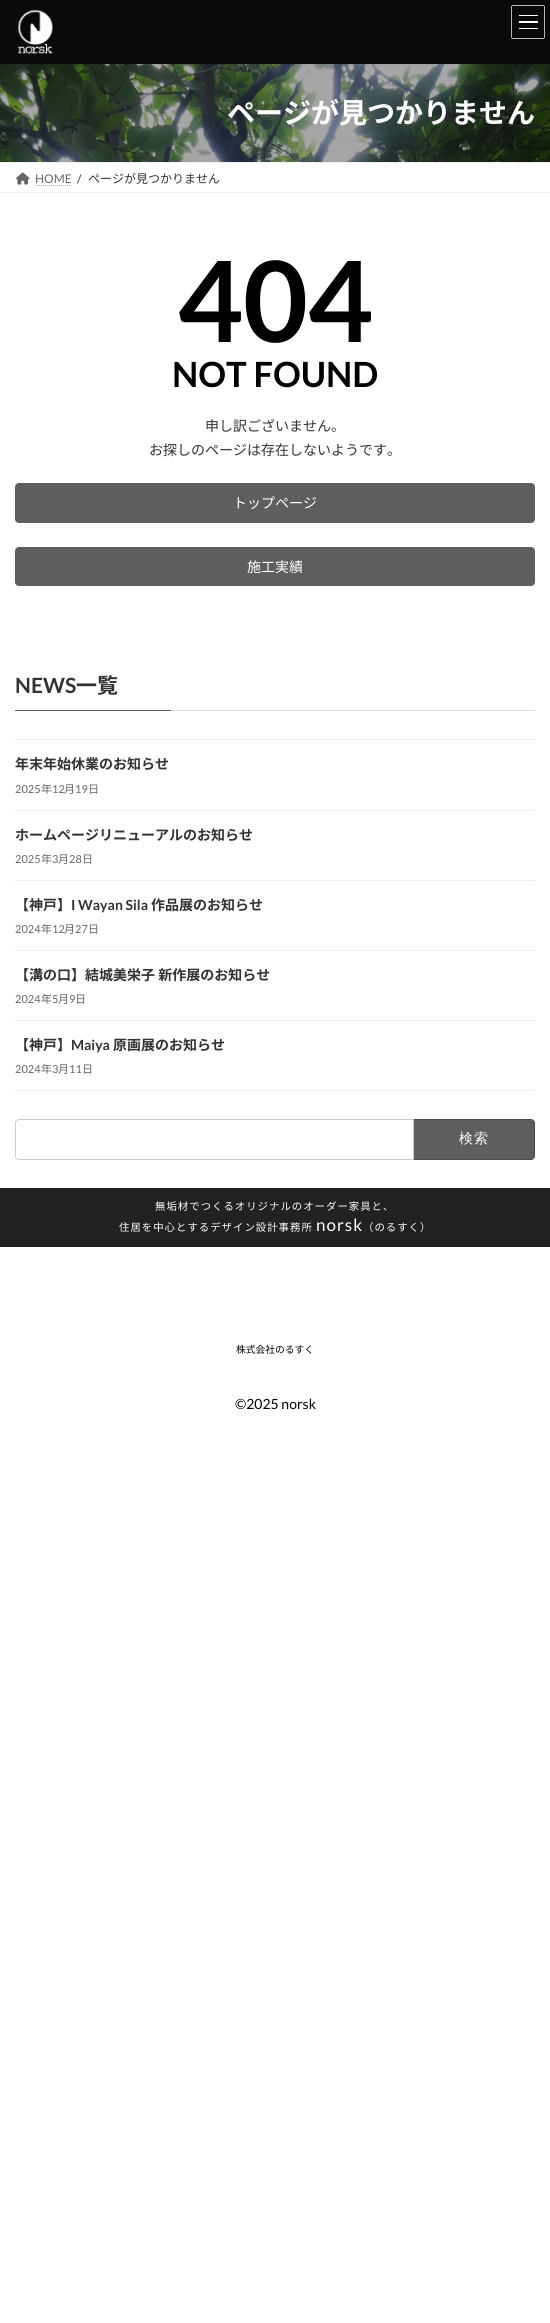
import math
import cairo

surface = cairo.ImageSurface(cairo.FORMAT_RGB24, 550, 2323)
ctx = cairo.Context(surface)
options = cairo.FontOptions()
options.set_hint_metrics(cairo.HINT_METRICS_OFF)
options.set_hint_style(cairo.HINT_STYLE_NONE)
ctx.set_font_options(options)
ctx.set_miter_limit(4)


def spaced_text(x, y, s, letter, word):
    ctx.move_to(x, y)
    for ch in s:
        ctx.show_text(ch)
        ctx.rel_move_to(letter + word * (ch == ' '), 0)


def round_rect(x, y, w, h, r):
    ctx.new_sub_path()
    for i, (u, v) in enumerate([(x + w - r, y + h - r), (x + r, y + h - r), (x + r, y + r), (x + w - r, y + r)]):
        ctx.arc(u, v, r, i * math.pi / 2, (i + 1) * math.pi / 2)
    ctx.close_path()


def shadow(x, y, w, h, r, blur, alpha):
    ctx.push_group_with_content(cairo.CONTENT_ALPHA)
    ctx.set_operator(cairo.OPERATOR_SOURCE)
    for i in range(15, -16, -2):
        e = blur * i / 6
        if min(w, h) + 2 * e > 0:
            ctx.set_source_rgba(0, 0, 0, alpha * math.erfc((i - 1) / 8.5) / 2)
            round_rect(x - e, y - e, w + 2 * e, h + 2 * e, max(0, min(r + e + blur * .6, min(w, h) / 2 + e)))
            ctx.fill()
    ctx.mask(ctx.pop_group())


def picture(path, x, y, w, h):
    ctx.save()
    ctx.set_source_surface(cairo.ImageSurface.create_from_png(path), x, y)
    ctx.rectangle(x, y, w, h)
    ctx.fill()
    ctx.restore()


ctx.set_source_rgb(1, 1, 1)
ctx.paint()
picture("img2.png", 0, 64, 550, 98)
ctx.set_source_rgb(0, 0, 0)
shadow(0, 1, 550, 64, 0, 1.5, 0.05)
ctx.set_source_rgb(0.039, 0.039, 0.039)
ctx.rectangle(0, 0, 550, 64)
ctx.fill()
picture("img1.png", 17, 9, 36, 45)
ctx.set_source_rgb(1, 1, 1)
ctx.rectangle(519, 15, 19, 1)
ctx.fill()
ctx.rectangle(519, 21, 19, 2)
ctx.fill()
ctx.rectangle(519, 28, 19, 1)
ctx.fill()
round_rect(511.5, 5.5, 33, 33, 1.5)
ctx.set_source_rgb(0.71, 0.71, 0.71)
ctx.set_line_width(1)
ctx.stroke()
ctx.select_font_face("Noto Sans JP", cairo.FONT_SLANT_NORMAL, cairo.FONT_WEIGHT_BOLD)
ctx.set_font_size(28)
ctx.set_source_rgb(1, 1, 1)
ctx.move_to(227, 123)
ctx.show_text("ページが見つかりません")
ctx.set_source_rgb(0.941, 0.941, 0.941)
ctx.rectangle(0, 162, 550, 1)
ctx.fill()
ctx.rectangle(0, 192, 550, 1)
ctx.fill()
picture("img3.png", 16, 172, 14, 13)
ctx.select_font_face("Lato")
ctx.set_font_size(12)
ctx.set_source_rgb(0.4, 0.4, 0.4)
ctx.move_to(35, 183)
ctx.show_text("HOME")
ctx.new_path()
ctx.move_to(35, 185.5)
ctx.line_to(71.5, 185.5)
ctx.set_source_rgb(0.702, 0.702, 0.702)
ctx.set_dash([1, 1])
ctx.stroke()
ctx.set_source_rgb(0.2, 0.2, 0.2)
ctx.move_to(77, 183)
ctx.show_text("/")
ctx.select_font_face("Noto Sans JP")
ctx.move_to(88, 183)
ctx.show_text("ページが見つかりません")
ctx.select_font_face("Lato", cairo.FONT_SLANT_NORMAL, cairo.FONT_WEIGHT_BOLD)
ctx.set_font_size(112)
ctx.set_source_rgb(0, 0, 0)
ctx.move_to(178, 342)
ctx.show_text("404")
ctx.set_font_size(34.75)
ctx.move_to(172, 387)
ctx.show_text("NOT FOUND")
ctx.select_font_face("Noto Sans JP")
ctx.set_font_size(14)
ctx.set_source_rgb(0.2, 0.2, 0.2)
ctx.move_to(205, 431)
ctx.show_text("申し訳ございません。")
ctx.move_to(149, 455)
ctx.show_text("お探しのページは存在しないようです。")
ctx.set_source_rgb(0.369, 0.369, 0.369)
round_rect(15, 483, 520, 40, 4)
ctx.fill()
ctx.set_source_rgb(1, 1, 1)
ctx.move_to(233, 508)
ctx.show_text("トップページ")
ctx.set_source_rgb(0.369, 0.369, 0.369)
round_rect(15, 547, 520, 39, 4)
ctx.fill()
ctx.set_source_rgb(1, 1, 1)
ctx.move_to(247, 572)
ctx.show_text("施工実績")
ctx.set_source_rgb(0.878, 0.878, 0.878)
ctx.rectangle(171, 710, 364, 1)
ctx.fill()
ctx.select_font_face("Lato", cairo.FONT_SLANT_NORMAL, cairo.FONT_WEIGHT_BOLD)
ctx.set_font_size(21)
ctx.set_source_rgb(0.2, 0.2, 0.2)
ctx.move_to(15, 693)
ctx.show_text("NEWS")
ctx.select_font_face("Noto Sans JP", cairo.FONT_SLANT_NORMAL, cairo.FONT_WEIGHT_BOLD)
ctx.move_to(76, 693)
ctx.show_text("一覧")
ctx.set_source_rgb(0.369, 0.369, 0.369)
ctx.rectangle(15, 710, 156, 1)
ctx.fill()
ctx.set_source_rgb(0.941, 0.941, 0.941)
ctx.rectangle(15, 739, 520, 1)
ctx.fill()
ctx.rectangle(15, 810, 520, 1)
ctx.fill()
ctx.set_font_size(14)
ctx.set_source_rgb(0.2, 0.2, 0.2)
ctx.move_to(15, 769)
ctx.show_text("年末年始休業のお知らせ")
ctx.select_font_face("Lato")
ctx.set_font_size(11)
ctx.set_source_rgb(0.4, 0.4, 0.4)
ctx.move_to(15, 793)
ctx.show_text("2025")
ctx.select_font_face("Noto Sans JP")
ctx.move_to(41, 793)
ctx.show_text("年")
ctx.select_font_face("Lato")
ctx.move_to(52, 793)
ctx.show_text("12")
ctx.select_font_face("Noto Sans JP")
ctx.move_to(64, 793)
ctx.show_text("月")
ctx.select_font_face("Lato")
ctx.move_to(75, 793)
ctx.show_text("19")
ctx.select_font_face("Noto Sans JP")
ctx.move_to(88, 793)
ctx.show_text("日")
ctx.set_source_rgb(0.941, 0.941, 0.941)
ctx.rectangle(15, 880, 520, 1)
ctx.fill()
ctx.select_font_face("Noto Sans JP", cairo.FONT_SLANT_NORMAL, cairo.FONT_WEIGHT_BOLD)
ctx.set_font_size(14)
ctx.set_source_rgb(0.2, 0.2, 0.2)
ctx.move_to(15, 840)
ctx.show_text("ホームページリニューアルのお知らせ")
ctx.select_font_face("Lato")
ctx.set_font_size(11)
ctx.set_source_rgb(0.4, 0.4, 0.4)
ctx.move_to(15, 863)
ctx.show_text("2025")
ctx.select_font_face("Noto Sans JP")
ctx.move_to(41, 863)
ctx.show_text("年")
ctx.select_font_face("Lato")
ctx.move_to(52, 863)
ctx.show_text("3")
ctx.select_font_face("Noto Sans JP")
ctx.move_to(58, 863)
ctx.show_text("月")
ctx.select_font_face("Lato")
ctx.move_to(69, 863)
ctx.show_text("28")
ctx.select_font_face("Noto Sans JP")
ctx.move_to(82, 863)
ctx.show_text("日")
ctx.set_source_rgb(0.941, 0.941, 0.941)
ctx.rectangle(15, 950, 520, 1)
ctx.fill()
ctx.select_font_face("Noto Sans JP", cairo.FONT_SLANT_NORMAL, cairo.FONT_WEIGHT_BOLD)
ctx.set_font_size(14)
ctx.set_source_rgb(0.2, 0.2, 0.2)
ctx.move_to(15, 910)
ctx.show_text("【神戸】")
ctx.select_font_face("Lato", cairo.FONT_SLANT_NORMAL, cairo.FONT_WEIGHT_BOLD)
ctx.move_to(71, 910)
ctx.show_text("I Wayan Sila")
ctx.select_font_face("Noto Sans JP", cairo.FONT_SLANT_NORMAL, cairo.FONT_WEIGHT_BOLD)
ctx.move_to(151, 910)
ctx.show_text("作品展のお知らせ")
ctx.select_font_face("Lato")
ctx.set_font_size(11)
ctx.set_source_rgb(0.4, 0.4, 0.4)
ctx.move_to(15, 933)
ctx.show_text("2024")
ctx.select_font_face("Noto Sans JP")
ctx.move_to(41, 933)
ctx.show_text("年")
ctx.select_font_face("Lato")
ctx.move_to(52, 933)
ctx.show_text("12")
ctx.select_font_face("Noto Sans JP")
ctx.move_to(64, 933)
ctx.show_text("月")
ctx.select_font_face("Lato")
ctx.move_to(75, 933)
ctx.show_text("27")
ctx.select_font_face("Noto Sans JP")
ctx.move_to(88, 933)
ctx.show_text("日")
ctx.set_source_rgb(0.941, 0.941, 0.941)
ctx.rectangle(15, 1020, 520, 1)
ctx.fill()
ctx.select_font_face("Noto Sans JP", cairo.FONT_SLANT_NORMAL, cairo.FONT_WEIGHT_BOLD)
ctx.set_font_size(14)
ctx.set_source_rgb(0.2, 0.2, 0.2)
ctx.move_to(15, 980)
ctx.show_text("【溝の口】結城美栄子 新作展のお知らせ")
ctx.select_font_face("Lato")
ctx.set_font_size(11)
ctx.set_source_rgb(0.4, 0.4, 0.4)
ctx.move_to(15, 1003)
ctx.show_text("2024")
ctx.select_font_face("Noto Sans JP")
ctx.move_to(41, 1003)
ctx.show_text("年")
ctx.select_font_face("Lato")
ctx.move_to(52, 1003)
ctx.show_text("5")
ctx.select_font_face("Noto Sans JP")
ctx.move_to(58, 1003)
ctx.show_text("月")
ctx.select_font_face("Lato")
ctx.move_to(69, 1003)
ctx.show_text("9")
ctx.select_font_face("Noto Sans JP")
ctx.move_to(75, 1003)
ctx.show_text("日")
ctx.set_source_rgb(0.941, 0.941, 0.941)
ctx.rectangle(15, 1090, 520, 1)
ctx.fill()
ctx.select_font_face("Noto Sans JP", cairo.FONT_SLANT_NORMAL, cairo.FONT_WEIGHT_BOLD)
ctx.set_font_size(14)
ctx.set_source_rgb(0.2, 0.2, 0.2)
ctx.move_to(15, 1050)
ctx.show_text("【神戸】")
ctx.select_font_face("Lato", cairo.FONT_SLANT_NORMAL, cairo.FONT_WEIGHT_BOLD)
ctx.move_to(71, 1050)
ctx.show_text("Maiya")
ctx.select_font_face("Noto Sans JP", cairo.FONT_SLANT_NORMAL, cairo.FONT_WEIGHT_BOLD)
ctx.move_to(113, 1050)
ctx.show_text("原画展のお知らせ")
ctx.select_font_face("Lato")
ctx.set_font_size(11)
ctx.set_source_rgb(0.4, 0.4, 0.4)
ctx.move_to(15, 1073)
ctx.show_text("2024")
ctx.select_font_face("Noto Sans JP")
ctx.move_to(41, 1073)
ctx.show_text("年")
ctx.select_font_face("Lato")
ctx.move_to(52, 1073)
ctx.show_text("3")
ctx.select_font_face("Noto Sans JP")
ctx.move_to(58, 1073)
ctx.show_text("月")
ctx.select_font_face("Lato")
ctx.move_to(69, 1073)
ctx.show_text("11")
ctx.select_font_face("Noto Sans JP")
ctx.move_to(82, 1073)
ctx.show_text("日")
ctx.new_path()
ctx.move_to(19, 1119.5)
ctx.line_to(413.5, 1119.5)
ctx.line_to(413.5, 1159.5)
ctx.line_to(19, 1159.5)
ctx.curve_to(17, 1159.5, 15.5, 1158, 15.5, 1156)
ctx.line_to(15.5, 1123)
ctx.curve_to(15.5, 1121, 17, 1119.5, 19, 1119.5)
ctx.close_path()
ctx.set_source_rgb(0.8, 0.8, 0.8)
ctx.set_dash([])
ctx.stroke()
ctx.set_source_rgb(0.369, 0.369, 0.369)
ctx.new_path()
ctx.move_to(414, 1119)
ctx.line_to(531, 1119)
ctx.curve_to(533, 1119, 535, 1121, 535, 1123)
ctx.line_to(535, 1156)
ctx.curve_to(535, 1158, 533, 1160, 531, 1160)
ctx.line_to(414, 1160)
ctx.close_path()
ctx.fill()
ctx.set_source_rgba(0, 0, 0, 0.2)
ctx.set_fill_rule(cairo.FILL_RULE_EVEN_ODD)
ctx.new_path()
ctx.move_to(414, 1119)
ctx.line_to(531, 1119)
ctx.curve_to(533, 1119, 535, 1121, 535, 1123)
ctx.line_to(535, 1156)
ctx.curve_to(535, 1158, 533, 1160, 531, 1160)
ctx.line_to(414, 1160)
ctx.close_path()
ctx.move_to(414, 1120)
ctx.line_to(531, 1120)
ctx.curve_to(533, 1120, 534, 1121, 534, 1123)
ctx.line_to(534, 1156)
ctx.curve_to(534, 1158, 533, 1159, 531, 1159)
ctx.line_to(414, 1159)
ctx.close_path()
ctx.fill()
ctx.select_font_face("WenQuanYi Zen Hei Medium")
ctx.set_font_size(14)
ctx.set_source_rgb(1, 1, 1)
spaced_text(459, 1143, "検索", 1, 0)
ctx.set_source_rgb(0.129, 0.129, 0.129)
ctx.rectangle(0, 1188, 550, 59)
ctx.fill()
ctx.select_font_face("Noto Sans JP")
ctx.set_font_size(10.4)
ctx.set_source_rgb(1, 1, 1)
spaced_text(155, 1210, "無垢材でつくるオリジナルのオーダー家具と、", 1, 0)
spaced_text(119, 1231, "住居を中心とするデザイン設計事務所", 1, 0)
ctx.select_font_face("Lato")
ctx.set_font_size(17)
spaced_text(316, 1231, "norsk", 1, 0)
ctx.select_font_face("Noto Sans JP")
ctx.set_font_size(10.4)
spaced_text(363, 1231, "（のるすく）", 1, 0)
ctx.set_font_size(9.75)
ctx.set_source_rgb(0, 0, 0)
ctx.move_to(236, 1353)
ctx.show_text("株式会社のるすく")
ctx.select_font_face("Lato")
ctx.set_font_size(14)
ctx.move_to(235, 1409)
ctx.show_text("©2025 norsk")
surface.write_to_png("page.png")
